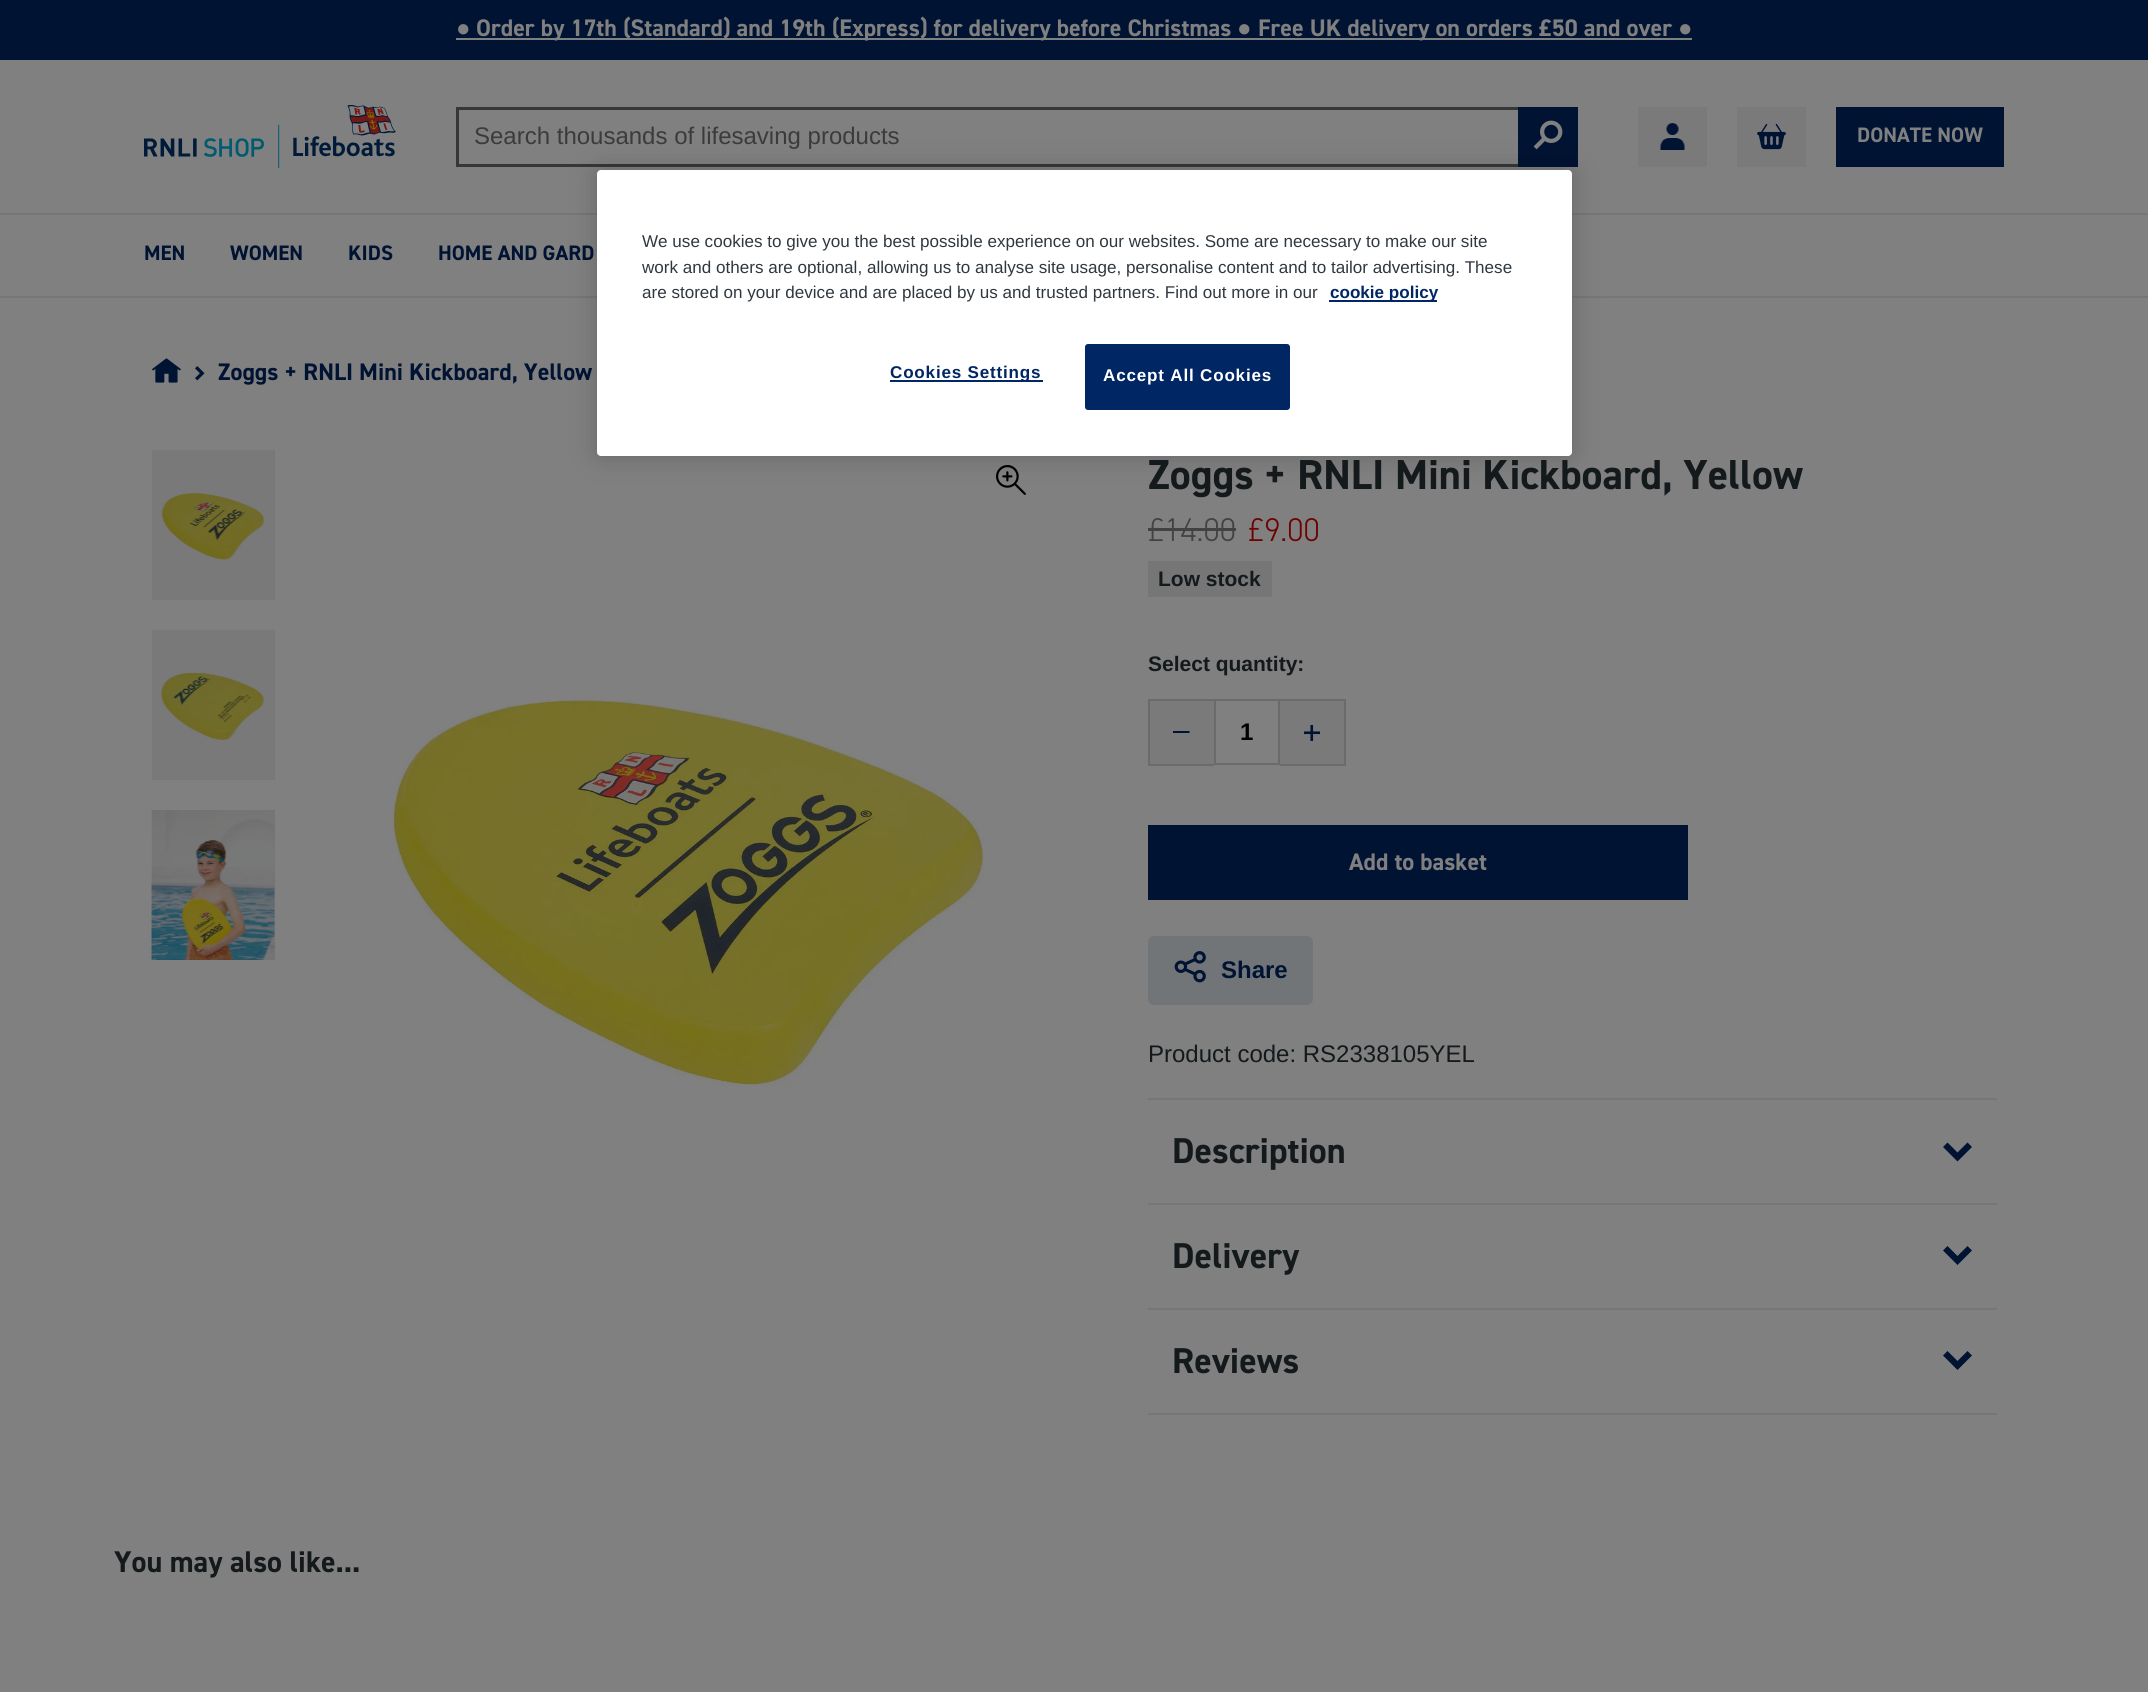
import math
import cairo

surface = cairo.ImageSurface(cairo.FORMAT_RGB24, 2148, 1692)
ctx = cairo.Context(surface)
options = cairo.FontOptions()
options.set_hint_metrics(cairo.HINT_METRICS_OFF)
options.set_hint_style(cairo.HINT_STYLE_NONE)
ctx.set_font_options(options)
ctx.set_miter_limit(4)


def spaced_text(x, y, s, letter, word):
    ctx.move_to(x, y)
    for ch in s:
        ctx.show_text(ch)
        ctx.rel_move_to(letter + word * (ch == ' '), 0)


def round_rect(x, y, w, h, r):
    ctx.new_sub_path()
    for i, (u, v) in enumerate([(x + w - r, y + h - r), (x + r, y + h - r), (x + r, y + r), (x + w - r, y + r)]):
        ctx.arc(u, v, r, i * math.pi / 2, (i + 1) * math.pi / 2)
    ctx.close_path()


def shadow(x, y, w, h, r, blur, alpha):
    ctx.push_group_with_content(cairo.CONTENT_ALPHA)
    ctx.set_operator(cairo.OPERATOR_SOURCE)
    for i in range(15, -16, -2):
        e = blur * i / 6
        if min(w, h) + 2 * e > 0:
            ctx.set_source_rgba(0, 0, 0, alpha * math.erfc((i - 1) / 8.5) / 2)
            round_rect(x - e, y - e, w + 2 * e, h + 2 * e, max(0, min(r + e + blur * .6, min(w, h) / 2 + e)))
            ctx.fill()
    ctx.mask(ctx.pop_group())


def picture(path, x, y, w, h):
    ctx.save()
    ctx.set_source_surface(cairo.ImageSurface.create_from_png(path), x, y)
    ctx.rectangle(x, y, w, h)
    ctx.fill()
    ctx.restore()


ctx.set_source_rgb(0.502, 0.502, 0.502)
ctx.paint()
ctx.set_source_rgb(0, 0.075, 0.196)
ctx.rectangle(0, 0, 2148, 60)
ctx.fill()
ctx.select_font_face("Liberation Sans", cairo.FONT_SLANT_NORMAL, cairo.FONT_WEIGHT_BOLD)
ctx.set_font_size(24)
ctx.set_source_rgb(0.502, 0.502, 0.502)
ctx.move_to(456, 36)
ctx.show_text("●")
ctx.rectangle(456, 38, 1236, 2)
ctx.fill()
ctx.select_font_face("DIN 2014", cairo.FONT_SLANT_NORMAL, cairo.FONT_WEIGHT_BOLD)
ctx.move_to(476, 36)
ctx.show_text("Order by 17th (Standard) and 19th (Express) for delivery before Christmas")
ctx.select_font_face("Liberation Sans", cairo.FONT_SLANT_NORMAL, cairo.FONT_WEIGHT_BOLD)
ctx.move_to(1237, 36)
ctx.show_text("●")
ctx.select_font_face("DIN 2014", cairo.FONT_SLANT_NORMAL, cairo.FONT_WEIGHT_BOLD)
ctx.move_to(1258, 36)
ctx.show_text("Free UK delivery on orders £50 and over")
ctx.select_font_face("Liberation Sans", cairo.FONT_SLANT_NORMAL, cairo.FONT_WEIGHT_BOLD)
ctx.move_to(1678, 36)
ctx.show_text("●")
picture("img1.png", 144, 105, 252, 63)
ctx.set_source_rgb(0.208, 0.22, 0.227)
ctx.rectangle(456, 107, 1062, 3)
ctx.fill()
ctx.rectangle(456, 164, 1062, 3)
ctx.fill()
ctx.rectangle(456, 107, 3, 60)
ctx.fill()
ctx.select_font_face("Liberation Sans")
ctx.set_source_rgb(0.231, 0.231, 0.231)
ctx.move_to(474, 144)
ctx.show_text("Search thousands of lifesaving products")
ctx.set_source_rgb(0, 0.075, 0.196)
ctx.rectangle(1518, 107, 60, 60)
ctx.fill()
picture("img2.png", 1533, 120, 30, 30)
ctx.set_source_rgb(0.478, 0.478, 0.478)
ctx.rectangle(1638, 107, 69, 60)
ctx.fill()
picture("img3.png", 1660, 123, 25, 27)
ctx.rectangle(1737, 107, 69, 60)
ctx.fill()
picture("img4.png", 1757, 123, 29, 27)
ctx.set_source_rgb(0, 0.075, 0.196)
ctx.rectangle(1836, 107, 168, 60)
ctx.fill()
ctx.select_font_face("DIN 2014", cairo.FONT_SLANT_NORMAL, cairo.FONT_WEIGHT_BOLD)
ctx.set_font_size(21)
ctx.set_source_rgb(0.502, 0.502, 0.502)
ctx.move_to(1857, 142)
ctx.show_text("DONATE NOW")
ctx.set_source_rgb(0.463, 0.463, 0.467)
ctx.rectangle(0, 213, 2148, 2)
ctx.fill()
ctx.rectangle(0, 296, 2148, 2)
ctx.fill()
ctx.set_source_rgb(0, 0.075, 0.196)
ctx.move_to(144, 260)
ctx.show_text("MEN")
ctx.move_to(230, 260)
ctx.show_text("WOMEN")
ctx.move_to(348, 260)
ctx.show_text("KIDS")
ctx.move_to(438, 260)
ctx.show_text("HOME AND GARD")
picture("img10.png", 996, 465, 30, 30)
ctx.set_source_rgb(0, 0, 0)
shadow(597, 170, 975, 286, 4, 13.5, 0.2)
ctx.set_source_rgb(1, 1, 1)
round_rect(597, 170, 975, 286, 4)
ctx.fill()
ctx.select_font_face("Liberation Sans")
ctx.set_font_size(17.07)
ctx.set_source_rgb(0.188, 0.22, 0.247)
ctx.move_to(642, 247)
ctx.show_text("We use cookies to give you the best possible experience on our websites. Some are necessary to make our site")
ctx.move_to(642, 273)
ctx.show_text("work and others are optional, allowing us to analyse site usage, personalise content and to tailor advertising. These")
ctx.move_to(642, 298)
ctx.show_text("are stored on your device and are placed by us and trusted partners. Find out more in our")
ctx.set_source_rgb(0, 0.149, 0.388)
ctx.rectangle(1329, 300, 108, 2)
ctx.fill()
ctx.select_font_face("Liberation Sans", cairo.FONT_SLANT_NORMAL, cairo.FONT_WEIGHT_BOLD)
ctx.move_to(1330, 298)
ctx.show_text("cookie policy")
ctx.rectangle(890, 380, 153, 2)
ctx.fill()
spaced_text(890, 378, "Cookies Settings", 0.8, 0)
round_rect(1086.5, 345.5, 202, 63, 1.5)
ctx.fill_preserve()
ctx.set_line_width(3)
ctx.stroke()
ctx.set_source_rgb(1, 1, 1)
spaced_text(1103, 381, "Accept All Cookies", 0.8, 0)
picture("img5.png", 152, 358, 29, 25)
picture("img6.png", 195, 366, 10, 15)
ctx.select_font_face("DIN 2014", cairo.FONT_SLANT_NORMAL, cairo.FONT_WEIGHT_BOLD)
ctx.set_font_size(24)
ctx.set_source_rgb(0, 0.075, 0.196)
ctx.move_to(218, 380)
ctx.show_text("Zoggs + RNLI Mini Kickboard, Yellow")
ctx.set_source_rgb(0.455, 0.455, 0.455)
ctx.rectangle(274, 450, 1, 150)
ctx.fill()
picture("img7.png", 152, 450, 123, 150)
ctx.rectangle(274, 630, 1, 150)
ctx.fill()
picture("img8.png", 152, 630, 123, 150)
ctx.rectangle(274, 810, 1, 150)
ctx.fill()
picture("img9.png", 151, 810, 124, 150)
picture("img11.png", 393, 699, 591, 387)
ctx.set_font_size(42)
ctx.set_source_rgb(0.082, 0.098, 0.11)
ctx.move_to(1148, 489)
ctx.show_text("Zoggs + RNLI Mini Kickboard, Yellow")
ctx.select_font_face("DIN 2014 Light")
ctx.set_font_size(33)
ctx.set_source_rgb(0.251, 0.259, 0.267)
ctx.move_to(1148, 541)
ctx.show_text("£14.00")
ctx.rectangle(1148, 528, 88, 3)
ctx.fill()
ctx.set_source_rgb(0.435, 0.004, 0.004)
ctx.move_to(1248, 541)
ctx.show_text("£9.00")
ctx.set_source_rgb(0.463, 0.463, 0.467)
ctx.rectangle(1148, 561, 124, 36)
ctx.fill()
ctx.select_font_face("Liberation Sans", cairo.FONT_SLANT_NORMAL, cairo.FONT_WEIGHT_BOLD)
ctx.set_font_size(21)
ctx.set_source_rgb(0.082, 0.098, 0.11)
ctx.move_to(1158, 586)
ctx.show_text("Low stock")
ctx.move_to(1148, 671)
ctx.show_text("Select quantity:")
ctx.set_source_rgb(0.478, 0.478, 0.478)
ctx.rectangle(1150, 701, 64, 63)
ctx.fill()
ctx.save()
ctx.rectangle(1173, 731, 17, 3)
ctx.clip()
ctx.set_source_rgb(0, 0.075, 0.196)
ctx.new_path()
ctx.move_to(1180, 730.5)
ctx.line_to(1173, 730.5)
ctx.line_to(1173, 733)
ctx.line_to(1189.5, 733)
ctx.line_to(1189.5, 730.5)
ctx.close_path()
ctx.fill()
ctx.restore()
ctx.set_source_rgb(0.42, 0.42, 0.424)
ctx.rectangle(1148, 699, 66, 2)
ctx.fill()
ctx.rectangle(1148, 764, 66, 2)
ctx.fill()
ctx.rectangle(1148, 699, 2, 66)
ctx.fill()
ctx.rectangle(1215, 700, 64, 64)
ctx.set_line_width(2)
ctx.stroke()
ctx.set_font_size(24)
ctx.set_source_rgb(0, 0, 0)
ctx.move_to(1240, 740)
ctx.show_text("1")
ctx.set_source_rgb(0.478, 0.478, 0.478)
ctx.rectangle(1280, 701, 64, 63)
ctx.fill()
picture("img12.png", 1304, 725, 16, 16)
ctx.set_source_rgb(0.42, 0.42, 0.424)
ctx.rectangle(1280, 699, 66, 2)
ctx.fill()
ctx.rectangle(1344, 699, 2, 66)
ctx.fill()
ctx.rectangle(1280, 764, 66, 2)
ctx.fill()
ctx.set_source_rgb(0, 0.075, 0.196)
ctx.rectangle(1148, 825, 540, 75)
ctx.fill()
ctx.select_font_face("DIN 2014", cairo.FONT_SLANT_NORMAL, cairo.FONT_WEIGHT_BOLD)
ctx.set_source_rgb(0.502, 0.502, 0.502)
ctx.move_to(1349, 870)
ctx.show_text("Add to basket")
ctx.set_source_rgb(0.447, 0.459, 0.471)
round_rect(1148, 936, 165, 69, 6)
ctx.fill()
picture("img13.png", 1174, 951, 32, 32)
ctx.select_font_face("Liberation Sans", cairo.FONT_SLANT_NORMAL, cairo.FONT_WEIGHT_BOLD)
ctx.set_source_rgb(0, 0.075, 0.196)
ctx.move_to(1221, 978)
ctx.show_text("Share")
ctx.select_font_face("Liberation Sans")
ctx.set_source_rgb(0.082, 0.098, 0.11)
ctx.move_to(1148, 1062)
ctx.show_text("Product code: RS2338105YEL")
ctx.set_source_rgb(0.463, 0.463, 0.467)
ctx.rectangle(1148, 1098, 849, 2)
ctx.fill()
ctx.rectangle(1148, 1203, 849, 2)
ctx.fill()
ctx.select_font_face("DIN 2014", cairo.FONT_SLANT_NORMAL, cairo.FONT_WEIGHT_BOLD)
ctx.set_font_size(36)
ctx.set_source_rgb(0.082, 0.098, 0.11)
ctx.move_to(1172, 1163)
ctx.show_text("Description")
ctx.set_source_rgb(0, 0.075, 0.196)
ctx.new_path()
ctx.move_to(1943, 1147)
ctx.line_to(1947.5, 1142.5)
ctx.line_to(1957.5, 1152.5)
ctx.line_to(1967.5, 1142.5)
ctx.line_to(1972, 1147)
ctx.line_to(1957.5, 1161.5)
ctx.close_path()
ctx.fill()
ctx.set_source_rgb(0.463, 0.463, 0.467)
ctx.rectangle(1148, 1308, 849, 2)
ctx.fill()
ctx.set_source_rgb(0.082, 0.098, 0.11)
ctx.move_to(1172, 1268)
ctx.show_text("Delivery")
ctx.set_source_rgb(0, 0.075, 0.196)
ctx.new_path()
ctx.move_to(1943, 1250.5)
ctx.line_to(1947.5, 1246)
ctx.line_to(1957.5, 1256)
ctx.line_to(1967.5, 1246)
ctx.line_to(1972, 1250.5)
ctx.line_to(1957.5, 1265)
ctx.close_path()
ctx.fill()
ctx.set_source_rgb(0.463, 0.463, 0.467)
ctx.rectangle(1148, 1413, 849, 2)
ctx.fill()
ctx.set_source_rgb(0.082, 0.098, 0.11)
ctx.move_to(1172, 1373)
ctx.show_text("Reviews")
ctx.set_source_rgb(0, 0.075, 0.196)
ctx.new_path()
ctx.move_to(1943, 1355.5)
ctx.line_to(1947.5, 1351)
ctx.line_to(1957.5, 1361)
ctx.line_to(1967.5, 1351)
ctx.line_to(1972, 1355.5)
ctx.line_to(1957.5, 1370)
ctx.close_path()
ctx.fill()
ctx.set_font_size(30)
ctx.set_source_rgb(0.082, 0.098, 0.11)
ctx.move_to(114, 1572)
ctx.show_text("You may also like...")
surface.write_to_png("page.png")
